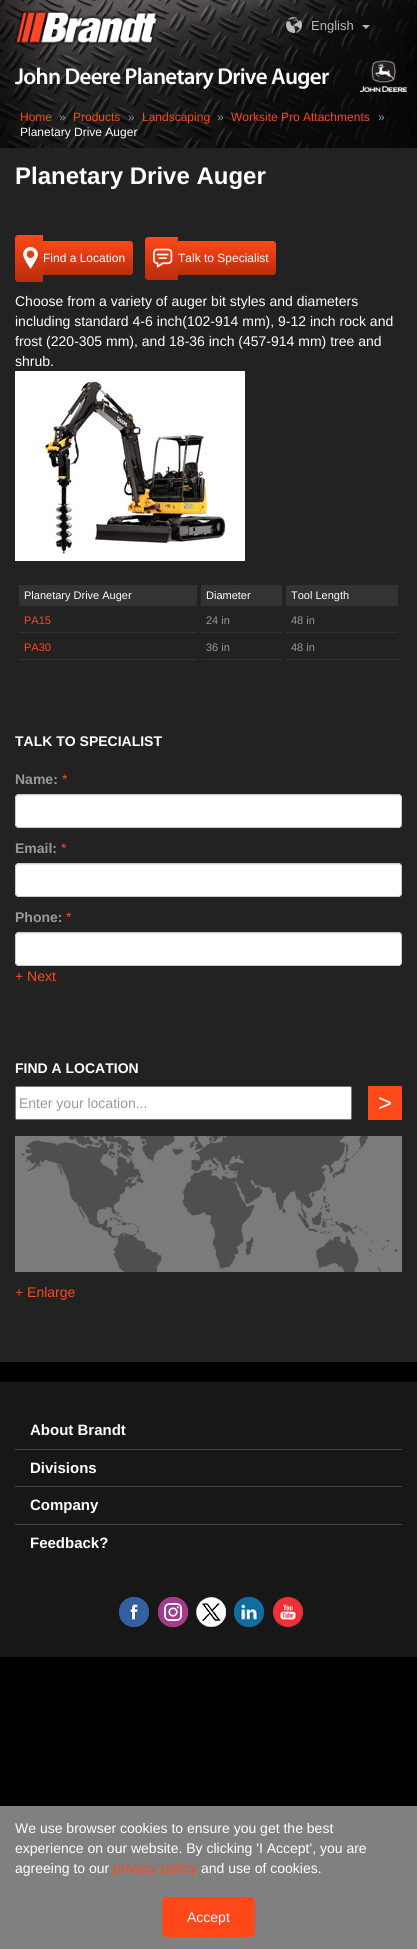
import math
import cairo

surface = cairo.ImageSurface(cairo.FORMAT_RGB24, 417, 1949)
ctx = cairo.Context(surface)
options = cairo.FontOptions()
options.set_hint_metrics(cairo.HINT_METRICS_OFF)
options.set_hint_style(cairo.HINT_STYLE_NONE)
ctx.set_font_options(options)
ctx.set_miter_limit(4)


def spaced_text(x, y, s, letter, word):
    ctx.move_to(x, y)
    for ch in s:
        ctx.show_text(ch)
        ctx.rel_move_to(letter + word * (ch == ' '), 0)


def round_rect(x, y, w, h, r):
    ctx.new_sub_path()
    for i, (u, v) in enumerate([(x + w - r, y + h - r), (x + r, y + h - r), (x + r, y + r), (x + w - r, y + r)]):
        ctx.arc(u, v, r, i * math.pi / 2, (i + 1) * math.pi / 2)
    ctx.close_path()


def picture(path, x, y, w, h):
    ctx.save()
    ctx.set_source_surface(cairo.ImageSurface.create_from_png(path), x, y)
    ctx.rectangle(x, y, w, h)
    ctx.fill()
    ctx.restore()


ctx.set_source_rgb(0, 0, 0)
ctx.paint()
picture("img1.png", 0, 0, 417, 148)
picture("img2.png", 15, 10, 143, 35)
picture("img3.png", 286, 17, 16, 16)
ctx.select_font_face("Liberation Sans")
ctx.set_font_size(13)
ctx.set_source_rgb(0.722, 0.718, 0.722)
ctx.move_to(311, 30)
ctx.show_text("English")
ctx.set_source_rgb(0.718, 0.714, 0.714)
ctx.new_path()
ctx.move_to(362, 25)
ctx.line_to(370, 25)
ctx.line_to(366, 29)
ctx.close_path()
ctx.fill()
ctx.select_font_face("Myriad SemiBold")
ctx.set_font_size(23)
ctx.set_source_rgb(1, 1, 1)
spaced_text(15, 84, "John Deere Planetary Drive Auger", -0.7, 0)
picture("img4.png", 360, 60, 47, 32)
ctx.select_font_face("Liberation Sans")
ctx.set_font_size(12)
ctx.set_source_rgb(0.996, 0.282, 0.098)
ctx.move_to(20, 121)
ctx.show_text("Home")
ctx.set_source_rgb(0.6, 0.6, 0.6)
ctx.move_to(59, 121)
ctx.show_text("»")
ctx.set_source_rgb(0.996, 0.282, 0.098)
ctx.move_to(73, 121)
ctx.show_text("Products")
ctx.set_source_rgb(0.6, 0.6, 0.6)
ctx.move_to(128, 121)
ctx.show_text("»")
ctx.set_source_rgb(0.996, 0.282, 0.098)
ctx.move_to(142, 121)
ctx.show_text("Landscaping")
ctx.set_source_rgb(0.6, 0.6, 0.6)
ctx.move_to(217, 121)
ctx.show_text("»")
ctx.set_source_rgb(0.996, 0.282, 0.098)
ctx.move_to(231, 121)
ctx.show_text("Worksite Pro Attachments")
ctx.set_source_rgb(0.6, 0.6, 0.6)
ctx.move_to(378, 121)
ctx.show_text("»")
ctx.set_source_rgb(1, 1, 1)
ctx.move_to(20, 136)
ctx.show_text("Planetary Drive Auger")
ctx.set_source_rgb(0.133, 0.133, 0.133)
ctx.rectangle(0, 148, 417, 1214)
ctx.fill()
ctx.select_font_face("Liberation Sans", cairo.FONT_SLANT_NORMAL, cairo.FONT_WEIGHT_BOLD)
ctx.set_font_size(24)
ctx.set_source_rgb(1, 1, 1)
ctx.move_to(15, 184)
ctx.show_text("Planetary Drive Auger")
gradient = cairo.LinearGradient(29, 235, 29, 282)
gradient.add_color_stop_rgba(0, 0.996, 0.282, 0.098, 1)
gradient.add_color_stop_rgba(1, 0.725, 0.176, 0.051, 1)
ctx.set_source(gradient)
ctx.new_path()
ctx.move_to(18, 235)
ctx.line_to(43, 235)
ctx.line_to(43, 282)
ctx.line_to(18, 282)
ctx.curve_to(16.5, 282, 15, 280.5, 15, 279)
ctx.line_to(15, 238)
ctx.curve_to(15, 236.5, 16.5, 235, 18, 235)
ctx.close_path()
ctx.fill()
picture("img5.png", 23, 247, 15, 22)
gradient = cairo.LinearGradient(88, 241, 88, 275)
gradient.add_color_stop_rgba(0, 0.996, 0.282, 0.098, 1)
gradient.add_color_stop_rgba(1, 0.725, 0.176, 0.051, 1)
ctx.set_source(gradient)
ctx.new_path()
ctx.move_to(43, 241)
ctx.line_to(130, 241)
ctx.curve_to(131.5, 241, 133, 242.5, 133, 244)
ctx.line_to(133, 272)
ctx.curve_to(133, 273.5, 131.5, 275, 130, 275)
ctx.line_to(43, 275)
ctx.close_path()
ctx.fill()
ctx.select_font_face("Liberation Sans")
ctx.set_font_size(12)
ctx.set_source_rgb(1, 1, 1)
ctx.move_to(43, 262)
ctx.show_text("Find a Location")
gradient = cairo.LinearGradient(162, 237, 162, 280)
gradient.add_color_stop_rgba(0, 0.996, 0.282, 0.098, 1)
gradient.add_color_stop_rgba(1, 0.725, 0.176, 0.051, 1)
ctx.set_source(gradient)
ctx.new_path()
ctx.move_to(148, 237)
ctx.line_to(178, 237)
ctx.line_to(178, 280)
ctx.line_to(148, 280)
ctx.curve_to(146.5, 280, 145, 278.5, 145, 277)
ctx.line_to(145, 240)
ctx.curve_to(145, 238.5, 146.5, 237, 148, 237)
ctx.close_path()
ctx.fill()
picture("img6.png", 153, 248, 20, 20)
gradient = cairo.LinearGradient(227, 241, 227, 275)
gradient.add_color_stop_rgba(0, 0.996, 0.282, 0.098, 1)
gradient.add_color_stop_rgba(1, 0.725, 0.176, 0.051, 1)
ctx.set_source(gradient)
ctx.new_path()
ctx.move_to(178, 241)
ctx.line_to(273, 241)
ctx.curve_to(274.5, 241, 276, 242.5, 276, 244)
ctx.line_to(276, 272)
ctx.curve_to(276, 273.5, 274.5, 275, 273, 275)
ctx.line_to(178, 275)
ctx.close_path()
ctx.fill()
ctx.set_source_rgb(1, 1, 1)
ctx.move_to(178, 262)
ctx.show_text("Talk to Specialist")
ctx.set_font_size(14)
ctx.move_to(15, 306)
ctx.show_text("Choose from a variety of auger bit styles and diameters")
ctx.move_to(15, 326)
ctx.show_text("including standard 4-6 inch(102-914 mm), 9-12 inch rock and")
ctx.move_to(15, 346)
ctx.show_text("frost (220-305 mm), and 18-36 inch (457-914 mm) tree and")
ctx.move_to(15, 366)
ctx.show_text("shrub.")
picture("img7.png", 15, 371, 230, 190)
ctx.set_source_rgb(0.2, 0.2, 0.2)
ctx.rectangle(19, 585, 178, 21)
ctx.fill()
ctx.set_font_size(11)
ctx.set_source_rgb(1, 1, 1)
ctx.move_to(24, 599)
ctx.show_text("Planetary Drive Auger")
ctx.set_source_rgb(0.2, 0.2, 0.2)
ctx.rectangle(201, 585, 81, 21)
ctx.fill()
ctx.set_source_rgb(1, 1, 1)
ctx.move_to(206, 599)
ctx.show_text("Diameter")
ctx.set_source_rgb(0.2, 0.2, 0.2)
ctx.rectangle(286, 585, 112, 21)
ctx.fill()
ctx.set_source_rgb(1, 1, 1)
ctx.move_to(291, 599)
ctx.show_text("Tool Length")
ctx.set_source_rgb(0.2, 0.2, 0.2)
ctx.rectangle(19, 632, 178, 1)
ctx.fill()
ctx.set_source_rgb(0.996, 0.282, 0.098)
ctx.move_to(24, 624)
ctx.show_text("PA15")
ctx.set_source_rgb(0.2, 0.2, 0.2)
ctx.rectangle(201, 632, 81, 1)
ctx.fill()
ctx.set_source_rgb(0.6, 0.6, 0.6)
ctx.move_to(206, 624)
ctx.show_text("24 in")
ctx.set_source_rgb(0.2, 0.2, 0.2)
ctx.rectangle(286, 632, 112, 1)
ctx.fill()
ctx.set_source_rgb(0.6, 0.6, 0.6)
ctx.move_to(291, 624)
ctx.show_text("48 in")
ctx.set_source_rgb(0.2, 0.2, 0.2)
ctx.rectangle(19, 659, 178, 1)
ctx.fill()
ctx.set_source_rgb(0.996, 0.282, 0.098)
ctx.move_to(24, 651)
ctx.show_text("PA30")
ctx.set_source_rgb(0.2, 0.2, 0.2)
ctx.rectangle(201, 659, 81, 1)
ctx.fill()
ctx.set_source_rgb(0.6, 0.6, 0.6)
ctx.move_to(206, 651)
ctx.show_text("36 in")
ctx.set_source_rgb(0.2, 0.2, 0.2)
ctx.rectangle(286, 659, 112, 1)
ctx.fill()
ctx.set_source_rgb(0.6, 0.6, 0.6)
ctx.move_to(291, 651)
ctx.show_text("48 in")
ctx.select_font_face("Liberation Sans", cairo.FONT_SLANT_NORMAL, cairo.FONT_WEIGHT_BOLD)
ctx.set_font_size(14)
ctx.set_source_rgb(1, 1, 1)
ctx.move_to(15, 746)
ctx.show_text("TALK TO SPECIALIST")
ctx.set_source_rgb(0.6, 0.6, 0.6)
ctx.move_to(15, 784)
ctx.show_text("Name:")
ctx.select_font_face("Liberation Sans")
ctx.set_source_rgb(0.996, 0.282, 0.098)
ctx.move_to(62, 784)
ctx.show_text("*")
ctx.set_source_rgb(1, 1, 1)
round_rect(15, 794, 387, 34, 4)
ctx.fill()
ctx.set_source_rgb(0.925, 0.925, 0.925)
ctx.new_path()
ctx.move_to(19, 796)
ctx.line_to(398, 796)
ctx.curve_to(400, 796, 401, 797, 401, 799)
ctx.curve_to(401, 797, 400, 795, 398, 795)
ctx.line_to(19, 795)
ctx.line_to(17, 796)
ctx.line_to(16, 799)
ctx.curve_to(16, 797, 17, 796, 19, 796)
ctx.close_path()
ctx.fill()
round_rect(15.5, 794.5, 386, 33, 3.5)
ctx.set_source_rgb(0.8, 0.8, 0.8)
ctx.set_line_width(1)
ctx.stroke()
ctx.select_font_face("Liberation Sans", cairo.FONT_SLANT_NORMAL, cairo.FONT_WEIGHT_BOLD)
ctx.set_source_rgb(0.6, 0.6, 0.6)
ctx.move_to(15, 853)
ctx.show_text("Email:")
ctx.select_font_face("Liberation Sans")
ctx.set_source_rgb(0.996, 0.282, 0.098)
ctx.move_to(61, 853)
ctx.show_text("*")
ctx.set_source_rgb(1, 1, 1)
round_rect(15, 863, 387, 34, 4)
ctx.fill()
ctx.set_source_rgb(0.925, 0.925, 0.925)
ctx.new_path()
ctx.move_to(19, 865)
ctx.line_to(398, 865)
ctx.curve_to(400, 865, 401, 866, 401, 868)
ctx.curve_to(401, 866, 400, 864, 398, 864)
ctx.line_to(19, 864)
ctx.line_to(17, 865)
ctx.line_to(16, 868)
ctx.curve_to(16, 866, 17, 865, 19, 865)
ctx.close_path()
ctx.fill()
round_rect(15.5, 863.5, 386, 33, 3.5)
ctx.set_source_rgb(0.8, 0.8, 0.8)
ctx.stroke()
ctx.select_font_face("Liberation Sans", cairo.FONT_SLANT_NORMAL, cairo.FONT_WEIGHT_BOLD)
ctx.set_source_rgb(0.6, 0.6, 0.6)
ctx.move_to(15, 922)
ctx.show_text("Phone:")
ctx.select_font_face("Liberation Sans")
ctx.set_source_rgb(0.996, 0.282, 0.098)
ctx.move_to(66, 922)
ctx.show_text("*")
ctx.set_source_rgb(1, 1, 1)
round_rect(15, 932, 387, 34, 4)
ctx.fill()
ctx.set_source_rgb(0.925, 0.925, 0.925)
ctx.new_path()
ctx.move_to(19, 934)
ctx.line_to(398, 934)
ctx.curve_to(400, 934, 401, 935, 401, 937)
ctx.curve_to(401, 935, 400, 933, 398, 933)
ctx.line_to(19, 933)
ctx.line_to(17, 934)
ctx.line_to(16, 937)
ctx.curve_to(16, 935, 17, 934, 19, 934)
ctx.close_path()
ctx.fill()
round_rect(15.5, 932.5, 386, 33, 3.5)
ctx.set_source_rgb(0.8, 0.8, 0.8)
ctx.stroke()
ctx.set_source_rgb(0.996, 0.282, 0.098)
ctx.move_to(15, 981)
ctx.show_text("+ Next")
ctx.select_font_face("Liberation Sans", cairo.FONT_SLANT_NORMAL, cairo.FONT_WEIGHT_BOLD)
ctx.set_source_rgb(1, 1, 1)
ctx.move_to(15, 1073)
ctx.show_text("FIND A LOCATION")
round_rect(15.5, 1086.5, 336, 33, 1.5)
ctx.fill_preserve()
ctx.set_source_rgb(0.463, 0.463, 0.463)
ctx.stroke()
ctx.select_font_face("Liberation Sans")
ctx.set_source_rgb(0.6, 0.6, 0.6)
ctx.move_to(19, 1108)
ctx.show_text("Enter your location...")
ctx.set_source_rgb(0.996, 0.286, 0.094)
ctx.rectangle(368, 1086, 34, 34)
ctx.fill()
ctx.set_font_size(24)
ctx.set_source_rgb(1, 1, 1)
ctx.move_to(378, 1111)
ctx.show_text(">")
picture("img8.png", 15, 1136, 387, 136)
ctx.set_font_size(14)
ctx.set_source_rgb(0.996, 0.282, 0.098)
ctx.move_to(15, 1297)
ctx.show_text("+ Enlarge")
ctx.set_source_rgb(0.09, 0.09, 0.09)
ctx.rectangle(0, 1382, 417, 275)
ctx.fill()
ctx.set_source_rgb(0.275, 0.275, 0.275)
ctx.rectangle(15, 1449, 387, 1)
ctx.fill()
ctx.select_font_face("Liberation Sans", cairo.FONT_SLANT_NORMAL, cairo.FONT_WEIGHT_BOLD)
ctx.set_font_size(15)
ctx.set_source_rgb(1, 1, 1)
ctx.move_to(30, 1435)
ctx.show_text("About Brandt")
ctx.set_source_rgb(0.275, 0.275, 0.275)
ctx.rectangle(15, 1486, 387, 1)
ctx.fill()
ctx.set_source_rgb(1, 1, 1)
ctx.move_to(30, 1473)
ctx.show_text("Divisions")
ctx.set_source_rgb(0.275, 0.275, 0.275)
ctx.rectangle(15, 1524, 387, 1)
ctx.fill()
ctx.set_source_rgb(1, 1, 1)
ctx.move_to(30, 1510)
ctx.show_text("Company")
ctx.move_to(30, 1548)
ctx.show_text("Feedback?")
picture("img9.png", 119, 1597, 30, 30)
picture("img10.png", 158, 1597, 30, 30)
picture("img11.png", 196, 1597, 30, 30)
picture("img12.png", 234, 1597, 30, 30)
picture("img13.png", 273, 1597, 30, 30)
ctx.set_source_rgb(0.502, 0.502, 0.502)
ctx.rectangle(0, 1806, 417, 143)
ctx.fill()
ctx.select_font_face("Liberation Sans")
ctx.set_font_size(14)
ctx.set_source_rgb(1, 1, 1)
ctx.move_to(15, 1833)
ctx.show_text("We use browser cookies to ensure you get the best")
ctx.move_to(15, 1853)
ctx.show_text("experience on our website. By clicking 'I Accept', you are")
ctx.move_to(15, 1873)
ctx.show_text("agreeing to our")
ctx.set_source_rgb(0.996, 0.282, 0.098)
ctx.move_to(113, 1873)
ctx.show_text("privacy policy")
ctx.set_source_rgb(1, 1, 1)
ctx.move_to(201, 1873)
ctx.show_text("and use of cookies.")
ctx.set_source_rgb(0.996, 0.282, 0.098)
round_rect(162, 1897, 93, 40, 5)
ctx.fill()
ctx.set_source_rgb(1, 1, 1)
ctx.move_to(187, 1922)
ctx.show_text("Accept")
surface.write_to_png("page.png")
